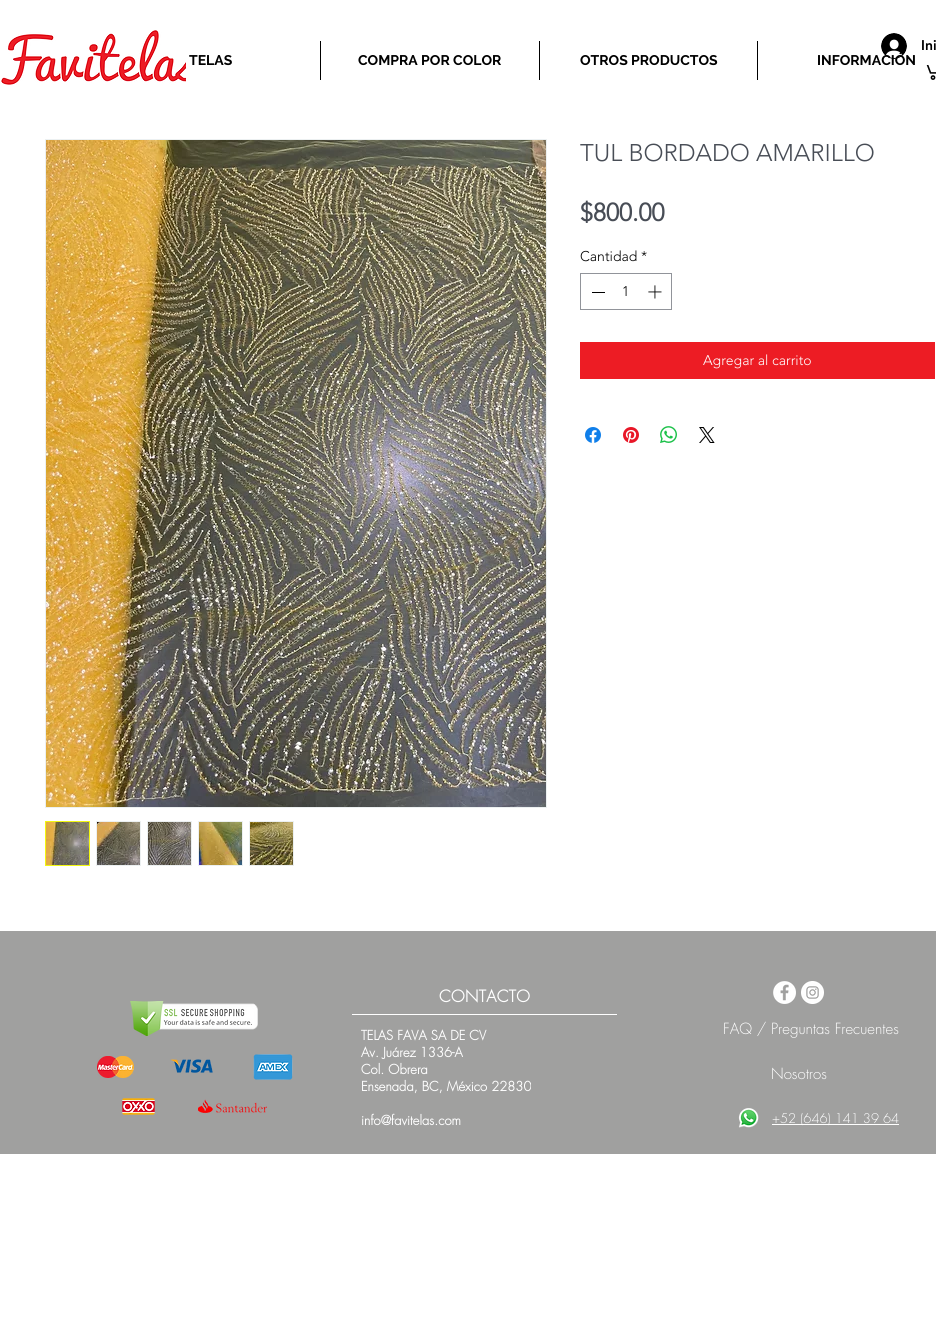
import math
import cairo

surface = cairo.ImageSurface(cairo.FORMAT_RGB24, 936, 1340)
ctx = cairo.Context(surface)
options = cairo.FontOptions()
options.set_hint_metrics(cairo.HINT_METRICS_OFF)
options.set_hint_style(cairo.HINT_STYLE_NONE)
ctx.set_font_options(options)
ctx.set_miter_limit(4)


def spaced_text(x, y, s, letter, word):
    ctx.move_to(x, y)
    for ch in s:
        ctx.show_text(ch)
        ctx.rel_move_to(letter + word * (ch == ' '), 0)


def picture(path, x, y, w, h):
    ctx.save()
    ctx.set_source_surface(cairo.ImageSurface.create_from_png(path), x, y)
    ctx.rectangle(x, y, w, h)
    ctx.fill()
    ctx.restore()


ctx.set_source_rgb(1, 1, 1)
ctx.paint()
picture("img1.png", 1, 30, 185, 55)
picture("img2.png", 881, 33, 26, 26)
ctx.select_font_face("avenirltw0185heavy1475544 Black")
ctx.set_font_size(14)
ctx.set_source_rgb(0, 0, 0)
ctx.move_to(921, 50)
ctx.show_text("Ini")
picture("img3.png", 926, 65, 10, 15)
ctx.select_font_face("Raleway", cairo.FONT_SLANT_NORMAL, cairo.FONT_WEIGHT_BOLD)
ctx.move_to(189, 65)
ctx.show_text("TELAS")
ctx.rectangle(320, 41, 1, 39)
ctx.fill()
ctx.move_to(358, 65)
ctx.show_text("COMPRA POR COLOR")
ctx.rectangle(539, 41, 1, 39)
ctx.fill()
ctx.move_to(580, 65)
ctx.show_text("OTROS PRODUCTOS")
ctx.rectangle(757, 41, 1, 39)
ctx.fill()
ctx.move_to(817, 65)
ctx.show_text("INFORMACIÓN")
ctx.rectangle(45.5, 139.5, 501, 668)
ctx.set_source_rgb(0.925, 0.941, 0.945)
ctx.set_line_width(1)
ctx.stroke()
picture("img4.png", 46, 140, 500, 667)
ctx.rectangle(45.5, 821.5, 44, 44)
ctx.set_source_rgb(0.953, 0.969, 0.063)
ctx.stroke()
picture("img5.png", 46, 822, 43, 43)
ctx.set_source_rgb(0.925, 0.941, 0.945)
ctx.rectangle(96, 821, 45, 45)
ctx.fill()
picture("img6.png", 97, 822, 43, 43)
ctx.rectangle(147, 821, 45, 45)
ctx.fill()
picture("img7.png", 148, 822, 43, 43)
ctx.rectangle(198, 821, 45, 45)
ctx.fill()
picture("img8.png", 199, 822, 43, 43)
ctx.rectangle(249, 821, 45, 45)
ctx.fill()
picture("img9.png", 250, 822, 43, 43)
ctx.select_font_face("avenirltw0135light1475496 Light")
ctx.set_font_size(24)
ctx.set_source_rgb(0.282, 0.302, 0.337)
ctx.move_to(580, 161)
ctx.show_text("TUL BORDADO AMARILLO")
ctx.select_font_face("avenirltw0135light1475496", cairo.FONT_SLANT_NORMAL, cairo.FONT_WEIGHT_BOLD)
ctx.set_font_size(25)
ctx.move_to(580, 221)
ctx.show_text("$800.00")
ctx.select_font_face("avenirltw0135light1475496 Light")
ctx.set_font_size(14)
ctx.set_source_rgb(0, 0, 0)
ctx.move_to(580, 261)
ctx.show_text("Cantidad")
ctx.move_to(641, 261)
ctx.show_text("*")
ctx.rectangle(580.5, 273.5, 91, 36)
ctx.set_source_rgb(0.569, 0.58, 0.604)
ctx.stroke()
ctx.set_source_rgb(0, 0, 0)
ctx.rectangle(592, 292, 13, 1)
ctx.fill()
ctx.move_to(622, 296)
ctx.show_text("1")
picture("img10.png", 648, 285, 14, 14)
ctx.set_source_rgb(0.929, 0.11, 0.141)
ctx.rectangle(580, 342, 355, 37)
ctx.fill()
ctx.set_source_rgb(1, 1, 1)
ctx.move_to(703, 365)
ctx.show_text("Agregar al carrito")
picture("img11.png", 585, 427, 16, 16)
picture("img12.png", 623, 427, 16, 16)
picture("img13.png", 660, 426, 17, 17)
picture("img14.png", 699, 427, 16, 16)
ctx.set_source_rgb(0.627, 0.627, 0.624)
ctx.rectangle(0, 931, 936, 223)
ctx.fill()
picture("img15.png", 130, 1001, 128, 35)
picture("img16.png", 97, 1056, 37, 22)
picture("img17.png", 170, 1059, 43, 14)
picture("img18.png", 253, 1054, 40, 26)
picture("img19.png", 122, 1098, 33, 17)
picture("img20.png", 198, 1099, 69, 15)
ctx.select_font_face("futura", cairo.FONT_SLANT_NORMAL, cairo.FONT_WEIGHT_BOLD)
ctx.set_font_size(16)
ctx.set_source_rgb(1, 1, 1)
spaced_text(439, 1002, "CONTACTO", 0.25, 0)
ctx.rectangle(352, 1014, 265, 1)
ctx.fill()
ctx.set_font_size(13)
ctx.move_to(361, 1040)
ctx.show_text("TELAS FAVA SA DE CV")
ctx.move_to(361, 1057)
ctx.show_text("Av. Juárez 1336-A")
ctx.move_to(361, 1074)
ctx.show_text("Col. Obrera")
ctx.move_to(361, 1091)
ctx.show_text("Ensenada, BC, México 22830")
ctx.move_to(361, 1125)
ctx.show_text("info@favitelas.com")
picture("img21.png", 773, 981, 23, 23)
picture("img22.png", 801, 981, 23, 23)
ctx.select_font_face("futura Light")
ctx.set_font_size(15)
ctx.move_to(723, 1034)
ctx.show_text("FAQ / Preguntas Frecuentes")
ctx.move_to(771, 1079)
ctx.show_text("Nosotros")
picture("img23.png", 738, 1108, 21, 20)
ctx.set_source_rgb(1, 1, 0.996)
ctx.rectangle(772, 1124, 127, 1)
ctx.fill()
ctx.set_font_size(13)
ctx.set_source_rgb(1, 1, 1)
ctx.move_to(772, 1123)
ctx.show_text("+52 (646) 141 39 64")
surface.write_to_png("page.png")
